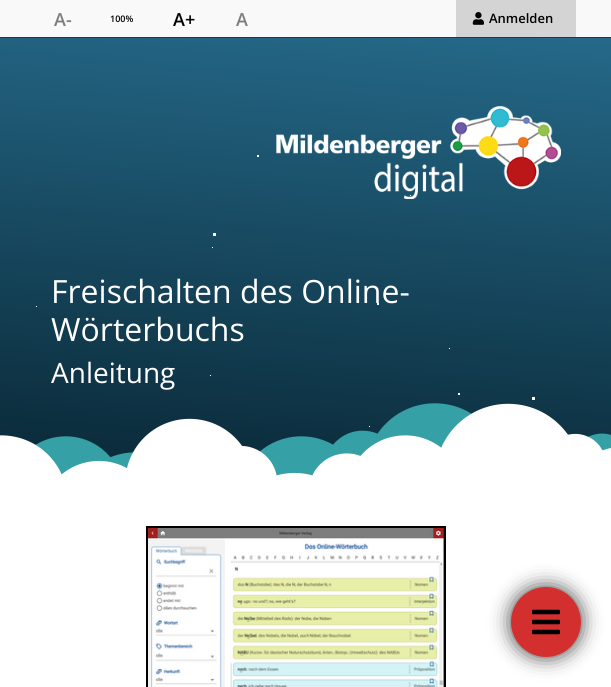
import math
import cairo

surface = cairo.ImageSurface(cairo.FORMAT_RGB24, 611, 687)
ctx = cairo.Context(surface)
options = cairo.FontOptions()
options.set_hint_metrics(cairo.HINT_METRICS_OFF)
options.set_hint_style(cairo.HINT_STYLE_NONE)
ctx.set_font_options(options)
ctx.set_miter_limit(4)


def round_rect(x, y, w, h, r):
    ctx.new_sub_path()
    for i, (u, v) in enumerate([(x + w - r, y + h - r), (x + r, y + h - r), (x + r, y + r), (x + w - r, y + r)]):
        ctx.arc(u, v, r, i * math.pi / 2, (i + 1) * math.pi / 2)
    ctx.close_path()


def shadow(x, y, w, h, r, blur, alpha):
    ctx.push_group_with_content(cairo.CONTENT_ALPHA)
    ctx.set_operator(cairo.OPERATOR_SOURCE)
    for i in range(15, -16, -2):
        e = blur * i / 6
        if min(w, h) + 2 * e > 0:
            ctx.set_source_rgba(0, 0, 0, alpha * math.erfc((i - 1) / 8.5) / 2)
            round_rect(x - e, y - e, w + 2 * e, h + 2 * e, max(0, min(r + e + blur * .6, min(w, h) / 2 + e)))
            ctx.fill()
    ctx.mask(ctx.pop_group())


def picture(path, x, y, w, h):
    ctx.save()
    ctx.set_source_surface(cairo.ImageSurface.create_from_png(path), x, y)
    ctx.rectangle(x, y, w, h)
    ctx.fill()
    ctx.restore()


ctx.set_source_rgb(1, 1, 1)
ctx.paint()
ctx.set_source_rgb(0.973, 0.976, 0.98)
ctx.rectangle(0, 0, 611, 37)
ctx.fill()
ctx.set_source_rgb(0.047, 0.247, 0.341)
ctx.rectangle(0, 37, 611, 1)
ctx.fill()
ctx.select_font_face("Open Sans SemiBold")
ctx.set_font_size(18)
ctx.set_source_rgb(0.486, 0.49, 0.49)
ctx.move_to(54, 26)
ctx.show_text("A-")
ctx.set_font_size(9)
ctx.set_source_rgb(0, 0, 0)
ctx.move_to(110, 22)
ctx.show_text("100%")
ctx.set_font_size(18)
ctx.move_to(173, 26)
ctx.show_text("A+")
ctx.set_source_rgb(0.486, 0.49, 0.49)
ctx.move_to(236, 26)
ctx.show_text("A")
ctx.set_source_rgb(0.831, 0.831, 0.831)
ctx.rectangle(456, 0, 120, 37)
ctx.fill()
picture("img1.png", 472, 12, 12, 13)
ctx.set_font_size(13)
ctx.set_source_rgb(0, 0, 0)
ctx.move_to(489, 23)
ctx.show_text("Anmelden")
gradient = cairo.LinearGradient(327, 12, 284, 503)
gradient.add_color_stop_rgba(0, 0.145, 0.412, 0.537, 1)
gradient.add_color_stop_rgba(1, 0.035, 0.153, 0.208, 1)
ctx.set_source(gradient)
ctx.rectangle(0, 38, 611, 420)
ctx.fill()
ctx.set_source_rgb(1, 1, 1)
ctx.rectangle(377, 303, 2, 2)
ctx.fill()
ctx.rectangle(458, 393, 2, 2)
ctx.fill()
ctx.rectangle(257, 155, 2, 2)
ctx.fill()
ctx.rectangle(36, 306, 1, 1)
ctx.fill()
ctx.rectangle(212, 247, 1, 1)
ctx.fill()
ctx.rectangle(410, 195, 1, 1)
ctx.fill()
ctx.rectangle(449, 348, 1, 1)
ctx.fill()
ctx.rectangle(369, 426, 1, 1)
ctx.fill()
ctx.rectangle(210, 375, 1, 1)
ctx.fill()
ctx.rectangle(532, 397, 3, 3)
ctx.fill()
ctx.rectangle(213, 233, 3, 3)
ctx.fill()
picture("img2.png", 276, 106, 285, 93)
ctx.select_font_face("Open Sans")
ctx.set_font_size(32)
ctx.move_to(51, 303)
ctx.show_text("Freischalten des Online-")
ctx.move_to(51, 341)
ctx.show_text("Wörterbuchs")
ctx.set_font_size(28)
ctx.move_to(51, 383)
ctx.show_text("Anleitung")
picture("img3.png", 0, 403, 611, 75)
ctx.rectangle(147, 527, 298, 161)
ctx.set_source_rgb(0, 0, 0)
ctx.stroke()
picture("img4.png", 148, 528, 296, 159)
ctx.set_source_rgb(0, 0, 0)
shadow(511, 587, 70, 70, 35, 10, 0.75)
ctx.set_source_rgb(0.827, 0.184, 0.184)
ctx.arc(546, 622, 35, 0, 2 * math.pi)
ctx.fill()
picture("img5.png", 532, 609, 28, 26)
surface.write_to_png("page.png")
